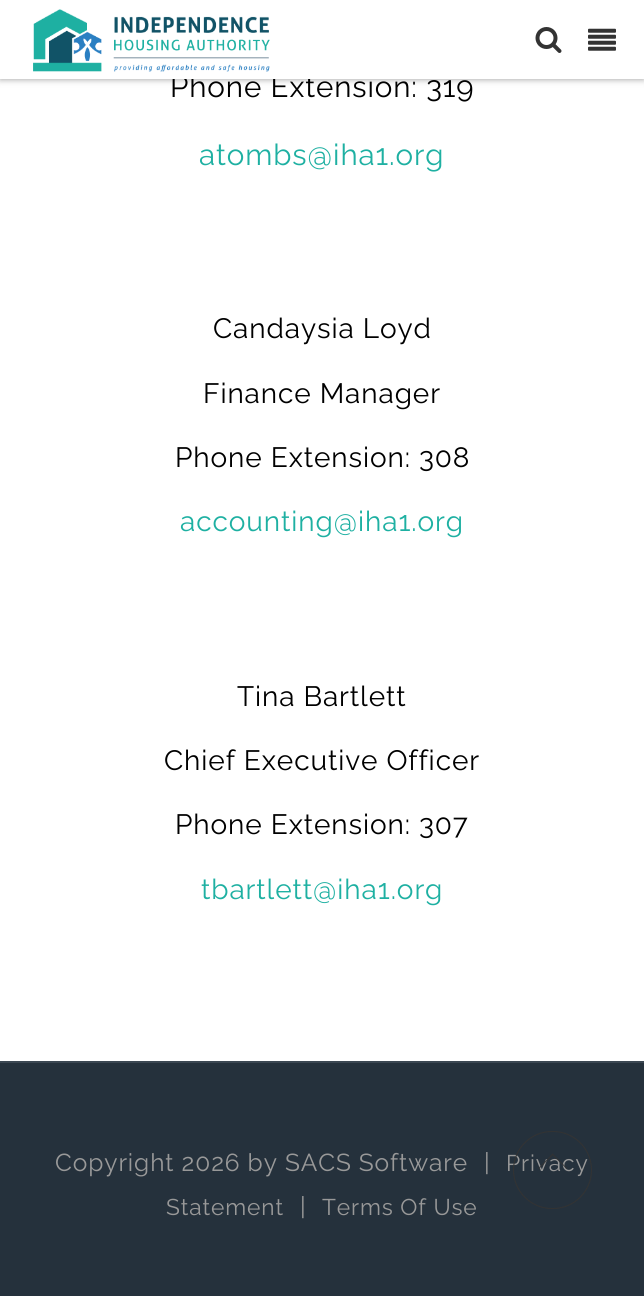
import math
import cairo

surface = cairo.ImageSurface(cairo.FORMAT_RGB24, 644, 1296)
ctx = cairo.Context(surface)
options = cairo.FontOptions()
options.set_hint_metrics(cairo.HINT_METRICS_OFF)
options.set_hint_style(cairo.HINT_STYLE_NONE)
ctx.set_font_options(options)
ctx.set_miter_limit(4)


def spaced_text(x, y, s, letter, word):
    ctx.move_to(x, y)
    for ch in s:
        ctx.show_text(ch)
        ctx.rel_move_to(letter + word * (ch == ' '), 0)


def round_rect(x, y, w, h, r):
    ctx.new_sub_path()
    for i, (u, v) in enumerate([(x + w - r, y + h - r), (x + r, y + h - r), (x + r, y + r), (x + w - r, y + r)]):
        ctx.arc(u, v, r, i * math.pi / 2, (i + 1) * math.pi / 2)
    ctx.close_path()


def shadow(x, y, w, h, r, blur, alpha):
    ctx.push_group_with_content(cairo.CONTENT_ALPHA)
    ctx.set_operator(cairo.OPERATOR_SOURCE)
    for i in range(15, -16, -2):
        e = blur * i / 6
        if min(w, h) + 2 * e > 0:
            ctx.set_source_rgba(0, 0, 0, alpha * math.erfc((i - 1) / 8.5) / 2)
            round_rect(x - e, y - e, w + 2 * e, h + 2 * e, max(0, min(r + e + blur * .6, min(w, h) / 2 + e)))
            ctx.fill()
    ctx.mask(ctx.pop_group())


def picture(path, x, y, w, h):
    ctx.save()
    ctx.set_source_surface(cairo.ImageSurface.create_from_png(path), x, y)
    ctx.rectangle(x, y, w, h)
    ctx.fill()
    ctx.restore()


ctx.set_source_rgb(1, 1, 1)
ctx.paint()
ctx.set_source_rgb(0, 0, 0)
shadow(0, -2, 644, 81, 0, 3.5, 0.4)
ctx.select_font_face("Raleway Thin")
ctx.set_font_size(29.5)
ctx.set_source_rgb(0, 0, 0)
spaced_text(170, 97, "Phone Extension: 319", 0.9, 0)
ctx.set_source_rgb(1, 1, 1)
ctx.rectangle(0, 0, 644, 79)
ctx.fill()
picture("img1.png", 33, 9, 237, 63)
picture("img2.png", 535, 27, 27, 26)
picture("img3.png", 588, 28, 28, 23)
ctx.set_source_rgb(0.118, 0.69, 0.635)
spaced_text(199, 165, "atombs@iha1.org", 0.9, 0)
ctx.set_font_size(28)
ctx.set_source_rgb(0, 0, 0)
spaced_text(213, 338, "Candaysia Loyd", 0.9, 0)
spaced_text(203, 403, "Finance Manager", 0.9, 0)
spaced_text(175, 467, "Phone Extension: 308", 0.9, 0)
ctx.set_source_rgb(0.118, 0.69, 0.635)
spaced_text(180, 531, "accounting@iha1.org", 0.9, 0)
ctx.set_source_rgb(0, 0, 0)
spaced_text(237, 706, "Tina Bartlett", 0.9, 0)
spaced_text(164, 770, "Chief Executive Officer", 0.9, 0)
spaced_text(175, 834, "Phone Extension: 307", 0.9, 0)
ctx.set_source_rgb(0.118, 0.69, 0.635)
spaced_text(201, 899, "tbartlett@iha1.org", 0.9, 0)
ctx.set_source_rgb(0.145, 0.192, 0.235)
ctx.rectangle(0, 1063, 644, 233)
ctx.fill()
ctx.set_font_size(22.75)
ctx.set_source_rgb(0.6, 0.6, 0.6)
spaced_text(506, 1171, "Privacy", 0.9, 0)
round_rect(513.5, 1131.5, 78, 77, 38.5)
ctx.set_source_rgb(0.2, 0.2, 0.2)
ctx.set_line_width(1)
ctx.stroke()
ctx.set_source_rgba(0.2, 0.2, 0.2, 0.8)
ctx.new_path()
ctx.move_to(552.5, 1153.5)
ctx.line_to(567.5, 1168.5)
ctx.line_to(566.5, 1169)
ctx.line_to(552, 1154.5)
ctx.close_path()
ctx.fill()
ctx.new_path()
ctx.move_to(552.5, 1153.5)
ctx.line_to(553.5, 1154.5)
ctx.line_to(539, 1169)
ctx.line_to(538, 1168.5)
ctx.close_path()
ctx.fill()
ctx.set_source_rgb(0.231, 0.278, 0.322)
ctx.rectangle(0, 1061, 644, 2)
ctx.fill()
ctx.set_font_size(24.5)
ctx.set_source_rgb(0.6, 0.6, 0.6)
spaced_text(55, 1171, "Copyright 2026 by SACS Software", 0.9, 0)
spaced_text(484, 1171, "|", 0.9, 0)
ctx.set_font_size(22.75)
spaced_text(166, 1215, "Statement", 0.9, 0)
ctx.set_font_size(24.5)
spaced_text(300, 1215, "|", 0.9, 0)
ctx.set_font_size(22.75)
spaced_text(322, 1215, "Terms Of Use", 0.9, 0)
surface.write_to_png("page.png")
